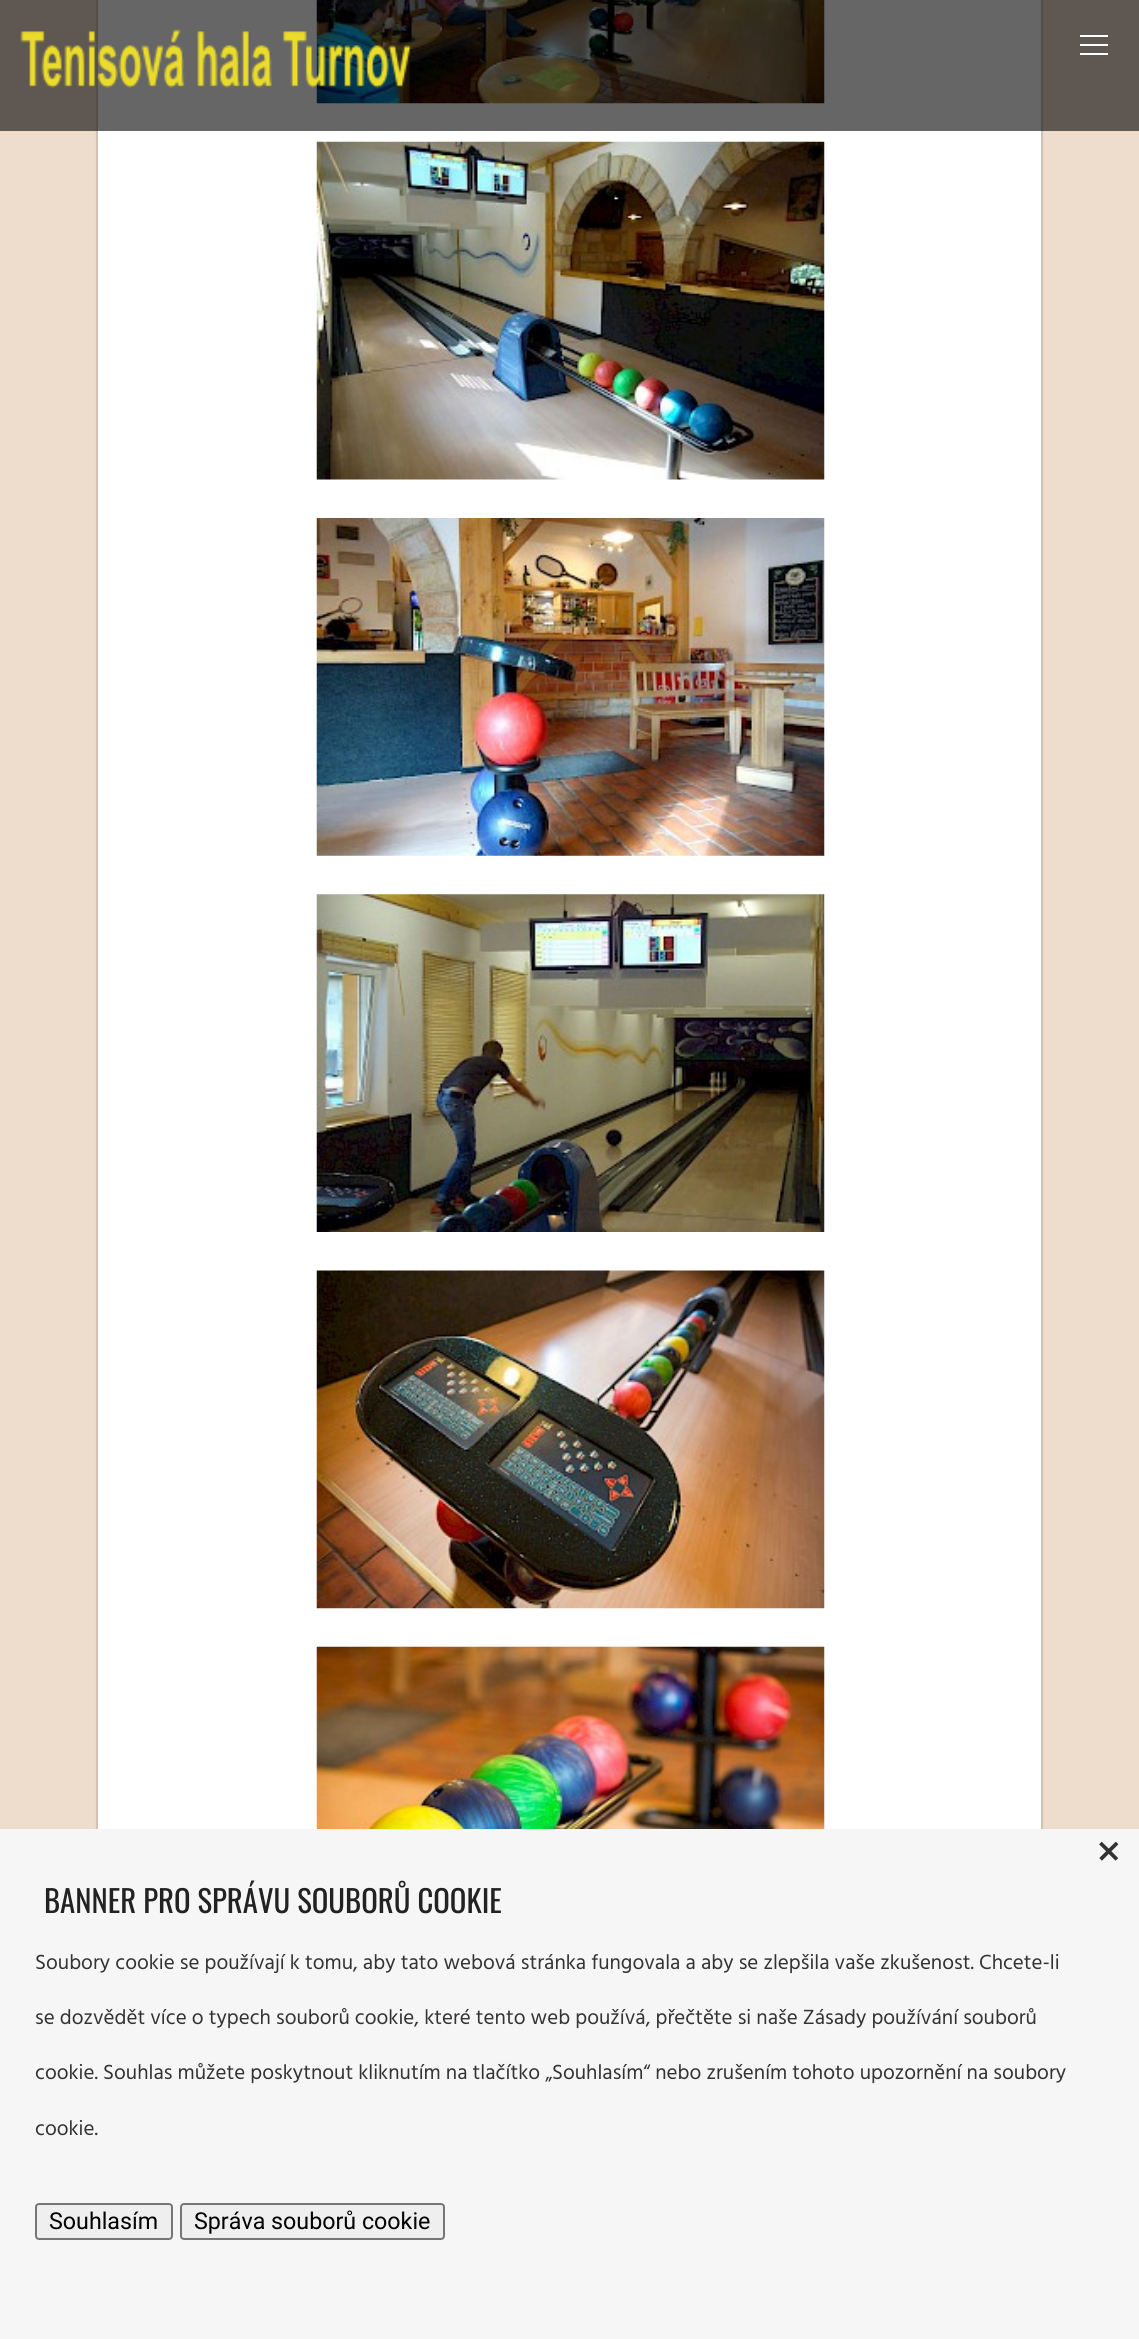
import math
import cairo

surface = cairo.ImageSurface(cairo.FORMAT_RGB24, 1139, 2339)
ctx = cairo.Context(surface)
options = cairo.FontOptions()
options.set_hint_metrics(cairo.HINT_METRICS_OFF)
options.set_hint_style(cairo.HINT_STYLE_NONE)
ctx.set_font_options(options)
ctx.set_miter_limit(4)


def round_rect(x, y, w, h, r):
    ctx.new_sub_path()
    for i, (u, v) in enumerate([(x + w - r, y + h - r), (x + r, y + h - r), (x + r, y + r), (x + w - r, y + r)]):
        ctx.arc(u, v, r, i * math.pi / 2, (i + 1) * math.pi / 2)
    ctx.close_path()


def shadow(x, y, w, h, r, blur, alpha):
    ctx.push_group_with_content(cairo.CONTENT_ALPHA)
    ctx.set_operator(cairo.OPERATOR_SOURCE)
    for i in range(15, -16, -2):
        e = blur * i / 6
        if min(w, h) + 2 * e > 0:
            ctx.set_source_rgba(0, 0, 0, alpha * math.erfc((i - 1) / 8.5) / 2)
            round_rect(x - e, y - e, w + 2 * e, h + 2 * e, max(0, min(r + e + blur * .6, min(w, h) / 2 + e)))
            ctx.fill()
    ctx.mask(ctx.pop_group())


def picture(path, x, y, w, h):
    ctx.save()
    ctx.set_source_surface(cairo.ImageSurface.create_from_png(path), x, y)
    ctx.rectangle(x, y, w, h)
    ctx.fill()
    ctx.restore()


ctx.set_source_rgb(0.933, 0.867, 0.8)
ctx.paint()
ctx.rectangle(97, -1, 945, 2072)
ctx.set_source_rgb(0.843, 0.784, 0.725)
ctx.stroke()
ctx.set_source_rgb(0.039, 0.039, 0.039)
shadow(98, -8, 943, 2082, 0, 2.5, 0.1)
ctx.set_source_rgb(1, 1, 1)
ctx.rectangle(98, 0, 943, 1829)
ctx.fill()
picture("img1.png", 316, 0, 509, 104)
picture("img2.png", 316, 141, 509, 339)
picture("img3.png", 316, 518, 509, 338)
picture("img4.png", 316, 894, 509, 338)
picture("img5.png", 316, 1270, 509, 339)
picture("img6.png", 316, 1646, 509, 183)
ctx.set_source_rgba(0, 0, 0, 0.6)
ctx.rectangle(0, 0, 1139, 131)
ctx.fill()
picture("img7.png", 20, 29, 392, 59)
ctx.set_source_rgb(1, 1, 1)
ctx.rectangle(1080, 35, 28, 2)
ctx.fill()
ctx.rectangle(1080, 44, 28, 2)
ctx.fill()
ctx.rectangle(1080, 53, 28, 2)
ctx.fill()
ctx.set_source_rgb(0.961, 0.961, 0.961)
ctx.rectangle(0, 1829, 1139, 510)
ctx.fill()
ctx.select_font_face("Hind")
ctx.set_font_size(52)
ctx.set_source_rgb(0.2, 0.2, 0.2)
ctx.move_to(1096, 1869)
ctx.show_text("×")
ctx.select_font_face("Oswald")
ctx.set_font_size(30.75)
ctx.set_source_rgb(0.133, 0.133, 0.133)
ctx.move_to(44, 1913)
ctx.show_text("BANNER PRO SPRÁVU SOUBORŮ COOKIE")
ctx.select_font_face("Hind")
ctx.set_font_size(21)
ctx.set_source_rgb(0.2, 0.2, 0.2)
ctx.move_to(35, 1969)
ctx.show_text("Soubory cookie se používají k tomu, aby tato webová stránka fungovala a aby se zlepšila vaše zkušenost. Chcete-li")
ctx.move_to(35, 2024)
ctx.show_text("se dozvědět více o typech souborů cookie, které tento web používá, přečtěte si naše Zásady používání souborů")
ctx.move_to(35, 2079)
ctx.show_text("cookie. Souhlas můžete poskytnout kliknutím na tlačítko „Souhlasím“ nebo zrušením tohoto upozornění na soubory")
ctx.move_to(35, 2135)
ctx.show_text("cookie.")
ctx.set_source_rgb(0.937, 0.937, 0.937)
round_rect(36, 2204, 136, 35, 3)
ctx.fill_preserve()
ctx.set_source_rgb(0.463, 0.463, 0.463)
ctx.stroke()
ctx.select_font_face("Roboto")
ctx.set_font_size(23.25)
ctx.set_source_rgb(0, 0, 0)
ctx.move_to(49, 2229)
ctx.show_text("Souhlasím")
ctx.set_source_rgb(0.937, 0.937, 0.937)
round_rect(181, 2204, 263, 35, 3)
ctx.fill_preserve()
ctx.set_source_rgb(0.463, 0.463, 0.463)
ctx.stroke()
ctx.set_source_rgb(0, 0, 0)
ctx.move_to(194, 2229)
ctx.show_text("Správa souborů cookie")
surface.write_to_png("page.png")
